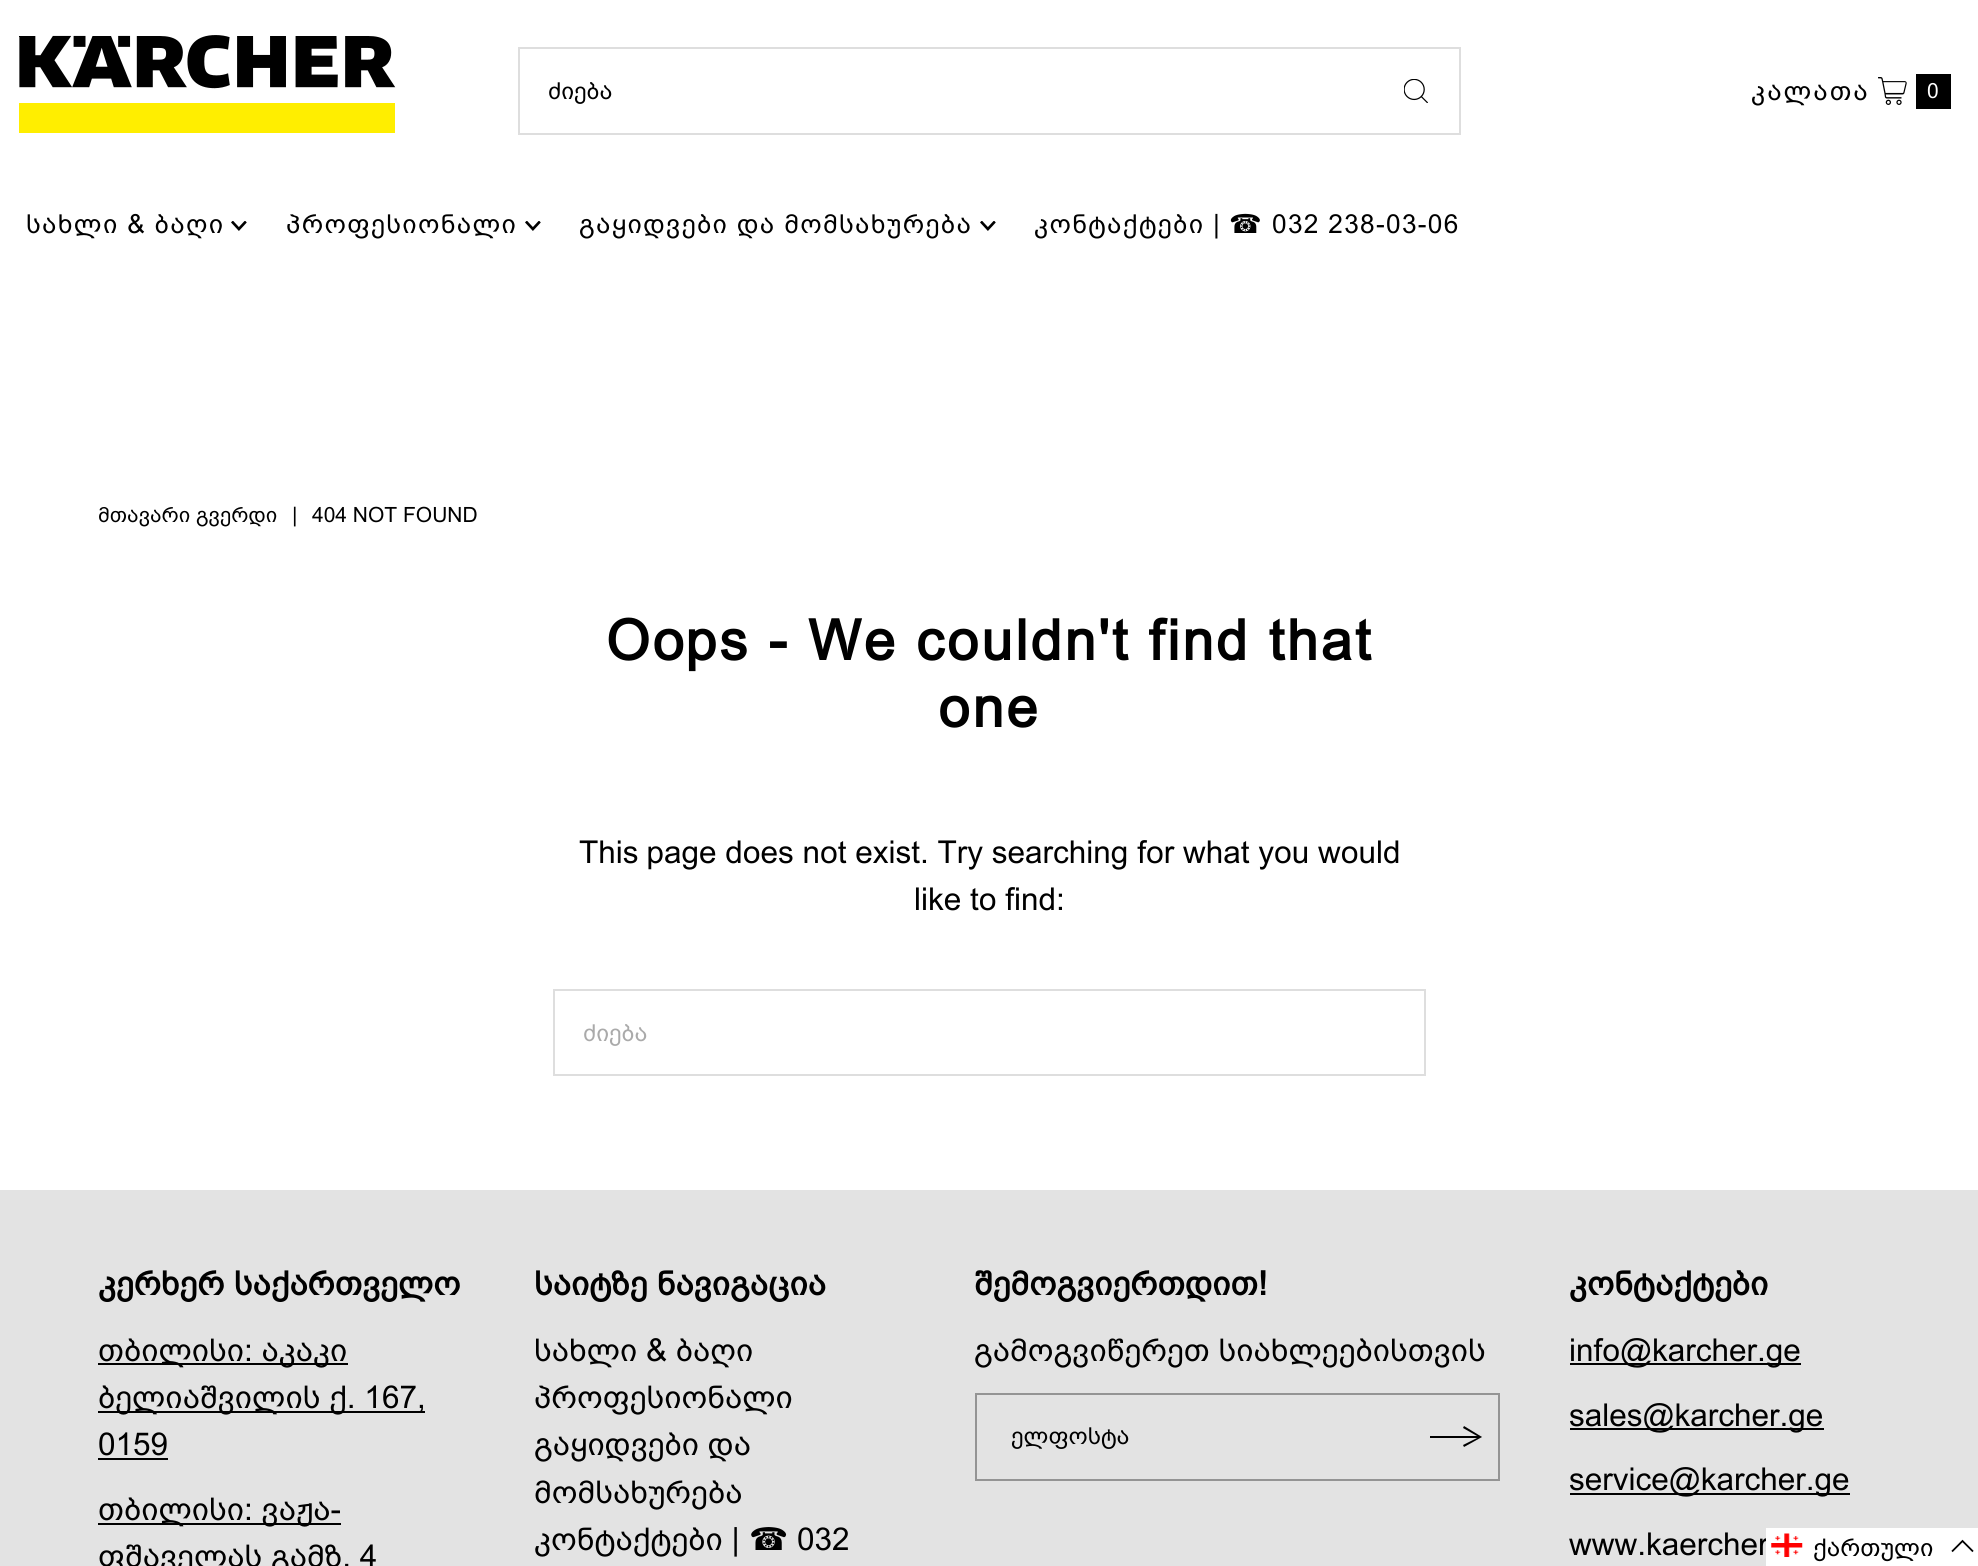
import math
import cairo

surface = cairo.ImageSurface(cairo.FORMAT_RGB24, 1978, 1566)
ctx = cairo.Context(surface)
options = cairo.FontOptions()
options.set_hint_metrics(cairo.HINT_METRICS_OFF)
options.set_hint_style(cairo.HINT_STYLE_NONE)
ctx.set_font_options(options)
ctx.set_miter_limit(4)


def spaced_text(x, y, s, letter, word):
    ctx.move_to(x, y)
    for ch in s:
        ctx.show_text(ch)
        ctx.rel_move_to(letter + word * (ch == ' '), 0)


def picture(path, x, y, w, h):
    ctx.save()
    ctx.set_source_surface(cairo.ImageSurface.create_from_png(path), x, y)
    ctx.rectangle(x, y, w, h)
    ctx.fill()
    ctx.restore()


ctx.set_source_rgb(1, 1, 1)
ctx.paint()
picture("img1.png", 19, 35, 377, 98)
ctx.rectangle(519, 48, 941, 86)
ctx.set_source_rgb(0.871, 0.871, 0.871)
ctx.stroke()
ctx.select_font_face("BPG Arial")
ctx.set_font_size(23.5)
ctx.set_source_rgb(0, 0, 0)
ctx.move_to(548, 99)
ctx.show_text("ძიება")
picture("img2.png", 1404, 79, 24, 24)
ctx.set_font_size(26.25)
spaced_text(1751, 100, "კალათა", 2, 0)
picture("img3.png", 1878, 77, 29, 28)
ctx.rectangle(1916, 74, 35, 35)
ctx.fill()
ctx.set_font_size(21)
ctx.set_source_rgb(1, 1, 1)
ctx.move_to(1927, 98)
ctx.show_text("0")
ctx.set_font_size(26.25)
ctx.set_source_rgb(0, 0, 0)
spaced_text(26, 233, "სახლი & ბაღი", 1.3, 0)
picture("img4.png", 231, 221, 16, 10)
spaced_text(286, 233, "პროფესიონალი", 1.3, 0)
picture("img4.png", 525, 221, 16, 10)
spaced_text(579, 233, "გაყიდვები და მომსახურება", 1.3, 0)
picture("img4.png", 980, 221, 16, 10)
spaced_text(1034, 233, "კონტაქტები |", 1.3, 0)
ctx.select_font_face("DejaVu Sans")
spaced_text(1229, 233, "☎", 1.3, 0)
ctx.select_font_face("BPG Arial")
spaced_text(1272, 233, "032 238-03-06", 1.3, 0)
ctx.set_font_size(21)
ctx.move_to(98, 522)
ctx.show_text("მთავარი გვერდი")
ctx.move_to(292, 522)
ctx.show_text("|")
ctx.move_to(312, 522)
ctx.show_text("404 NOT FOUND")
ctx.select_font_face("BPG Arial", cairo.FONT_SLANT_NORMAL, cairo.FONT_WEIGHT_BOLD)
ctx.set_font_size(56)
spaced_text(606, 660, "Oops - We couldn't find that", 2.8, 0)
spaced_text(938, 727, "one", 2.8, 0)
ctx.select_font_face("BPG Arial")
ctx.set_font_size(31.5)
ctx.move_to(579, 863)
ctx.show_text("This page does not exist. Try searching for what you would")
ctx.move_to(914, 910)
ctx.show_text("like to find:")
ctx.rectangle(554, 990, 871, 85)
ctx.set_source_rgb(0.871, 0.871, 0.871)
ctx.stroke()
ctx.set_font_size(23.5)
ctx.set_source_rgb(0.667, 0.667, 0.667)
ctx.move_to(583, 1041)
ctx.show_text("ძიება")
ctx.set_source_rgb(0.89, 0.89, 0.89)
ctx.rectangle(0, 1190, 1978, 376)
ctx.fill()
ctx.select_font_face("BPG Arial", cairo.FONT_SLANT_NORMAL, cairo.FONT_WEIGHT_BOLD)
ctx.set_font_size(33.25)
ctx.set_source_rgb(0, 0, 0)
ctx.move_to(98, 1295)
ctx.show_text("კერხერ საქართველო")
ctx.rectangle(98, 1363, 250, 2)
ctx.fill()
ctx.select_font_face("BPG Arial")
ctx.set_font_size(31.5)
ctx.move_to(98, 1361)
ctx.show_text("თბილისი: აკაკი")
ctx.rectangle(98, 1411, 327, 2)
ctx.fill()
ctx.move_to(98, 1408)
ctx.show_text("ბელიაშვილის ქ. 167,")
ctx.move_to(98, 1455)
ctx.show_text("0159")
ctx.rectangle(98, 1458, 70, 2)
ctx.fill()
ctx.rectangle(98, 1523, 243, 2)
ctx.fill()
ctx.move_to(98, 1520)
ctx.show_text("თბილისი: ვაჟა-")
ctx.move_to(98, 1567)
ctx.show_text("ფშაველას გამზ. 4")
ctx.select_font_face("BPG Arial", cairo.FONT_SLANT_NORMAL, cairo.FONT_WEIGHT_BOLD)
ctx.set_font_size(33.25)
ctx.move_to(534, 1295)
ctx.show_text("საიტზე ნავიგაცია")
ctx.select_font_face("BPG Arial")
ctx.set_font_size(31.5)
ctx.move_to(534, 1361)
ctx.show_text("სახლი & ბაღი")
ctx.move_to(534, 1408)
ctx.show_text("პროფესიონალი")
ctx.move_to(534, 1455)
ctx.show_text("გაყიდვები და")
ctx.move_to(534, 1503)
ctx.show_text("მომსახურება")
ctx.move_to(534, 1550)
ctx.show_text("კონტაქტები |")
ctx.select_font_face("DejaVu Sans")
ctx.move_to(749, 1550)
ctx.show_text("☎")
ctx.select_font_face("BPG Arial")
ctx.move_to(797, 1550)
ctx.show_text("032")
ctx.select_font_face("BPG Arial", cairo.FONT_SLANT_NORMAL, cairo.FONT_WEIGHT_BOLD)
ctx.set_font_size(33.25)
ctx.move_to(974, 1295)
ctx.show_text("შემოგვიერთდით!")
ctx.select_font_face("BPG Arial")
ctx.set_font_size(31.5)
ctx.move_to(974, 1361)
ctx.show_text("გამოგვიწერეთ სიახლეებისთვის")
ctx.rectangle(976, 1394, 523, 86)
ctx.set_source_rgb(0.58, 0.58, 0.58)
ctx.stroke()
ctx.set_font_size(23.5)
ctx.set_source_rgb(0, 0, 0)
ctx.move_to(1011, 1444)
ctx.show_text("ელფოსტა")
ctx.new_path()
ctx.move_to(1464, 1426)
ctx.line_to(1482, 1437)
ctx.line_to(1464, 1447)
ctx.line_to(1463, 1445)
ctx.line_to(1477, 1438)
ctx.line_to(1430, 1438)
ctx.line_to(1430, 1436)
ctx.line_to(1477, 1436)
ctx.line_to(1463, 1428)
ctx.close_path()
ctx.fill()
ctx.select_font_face("BPG Arial", cairo.FONT_SLANT_NORMAL, cairo.FONT_WEIGHT_BOLD)
ctx.set_font_size(33.25)
ctx.move_to(1569, 1295)
ctx.show_text("კონტაქტები")
ctx.rectangle(1570, 1363, 231, 2)
ctx.fill()
ctx.select_font_face("BPG Arial")
ctx.set_font_size(31.5)
ctx.move_to(1569, 1361)
ctx.show_text("info@karcher.ge")
ctx.rectangle(1570, 1428, 254, 2)
ctx.fill()
ctx.move_to(1569, 1426)
ctx.show_text("sales@karcher.ge")
ctx.rectangle(1570, 1493, 280, 2)
ctx.fill()
ctx.move_to(1569, 1490)
ctx.show_text("service@karcher.ge")
ctx.move_to(1569, 1555)
ctx.show_text("www.kaercher")
ctx.set_source_rgb(1, 1, 1)
ctx.rectangle(1766, 1528, 212, 38)
ctx.fill()
picture("img5.png", 1771, 1533, 32, 24)
ctx.set_font_size(24.5)
ctx.set_source_rgb(0, 0, 0)
ctx.move_to(1813, 1556)
ctx.show_text("ქართული")
ctx.new_path()
ctx.move_to(1973, 1551.5)
ctx.line_to(1962.5, 1541)
ctx.line_to(1952, 1551.5)
ctx.set_line_width(1.8)
ctx.stroke()
surface.write_to_png("page.png")
